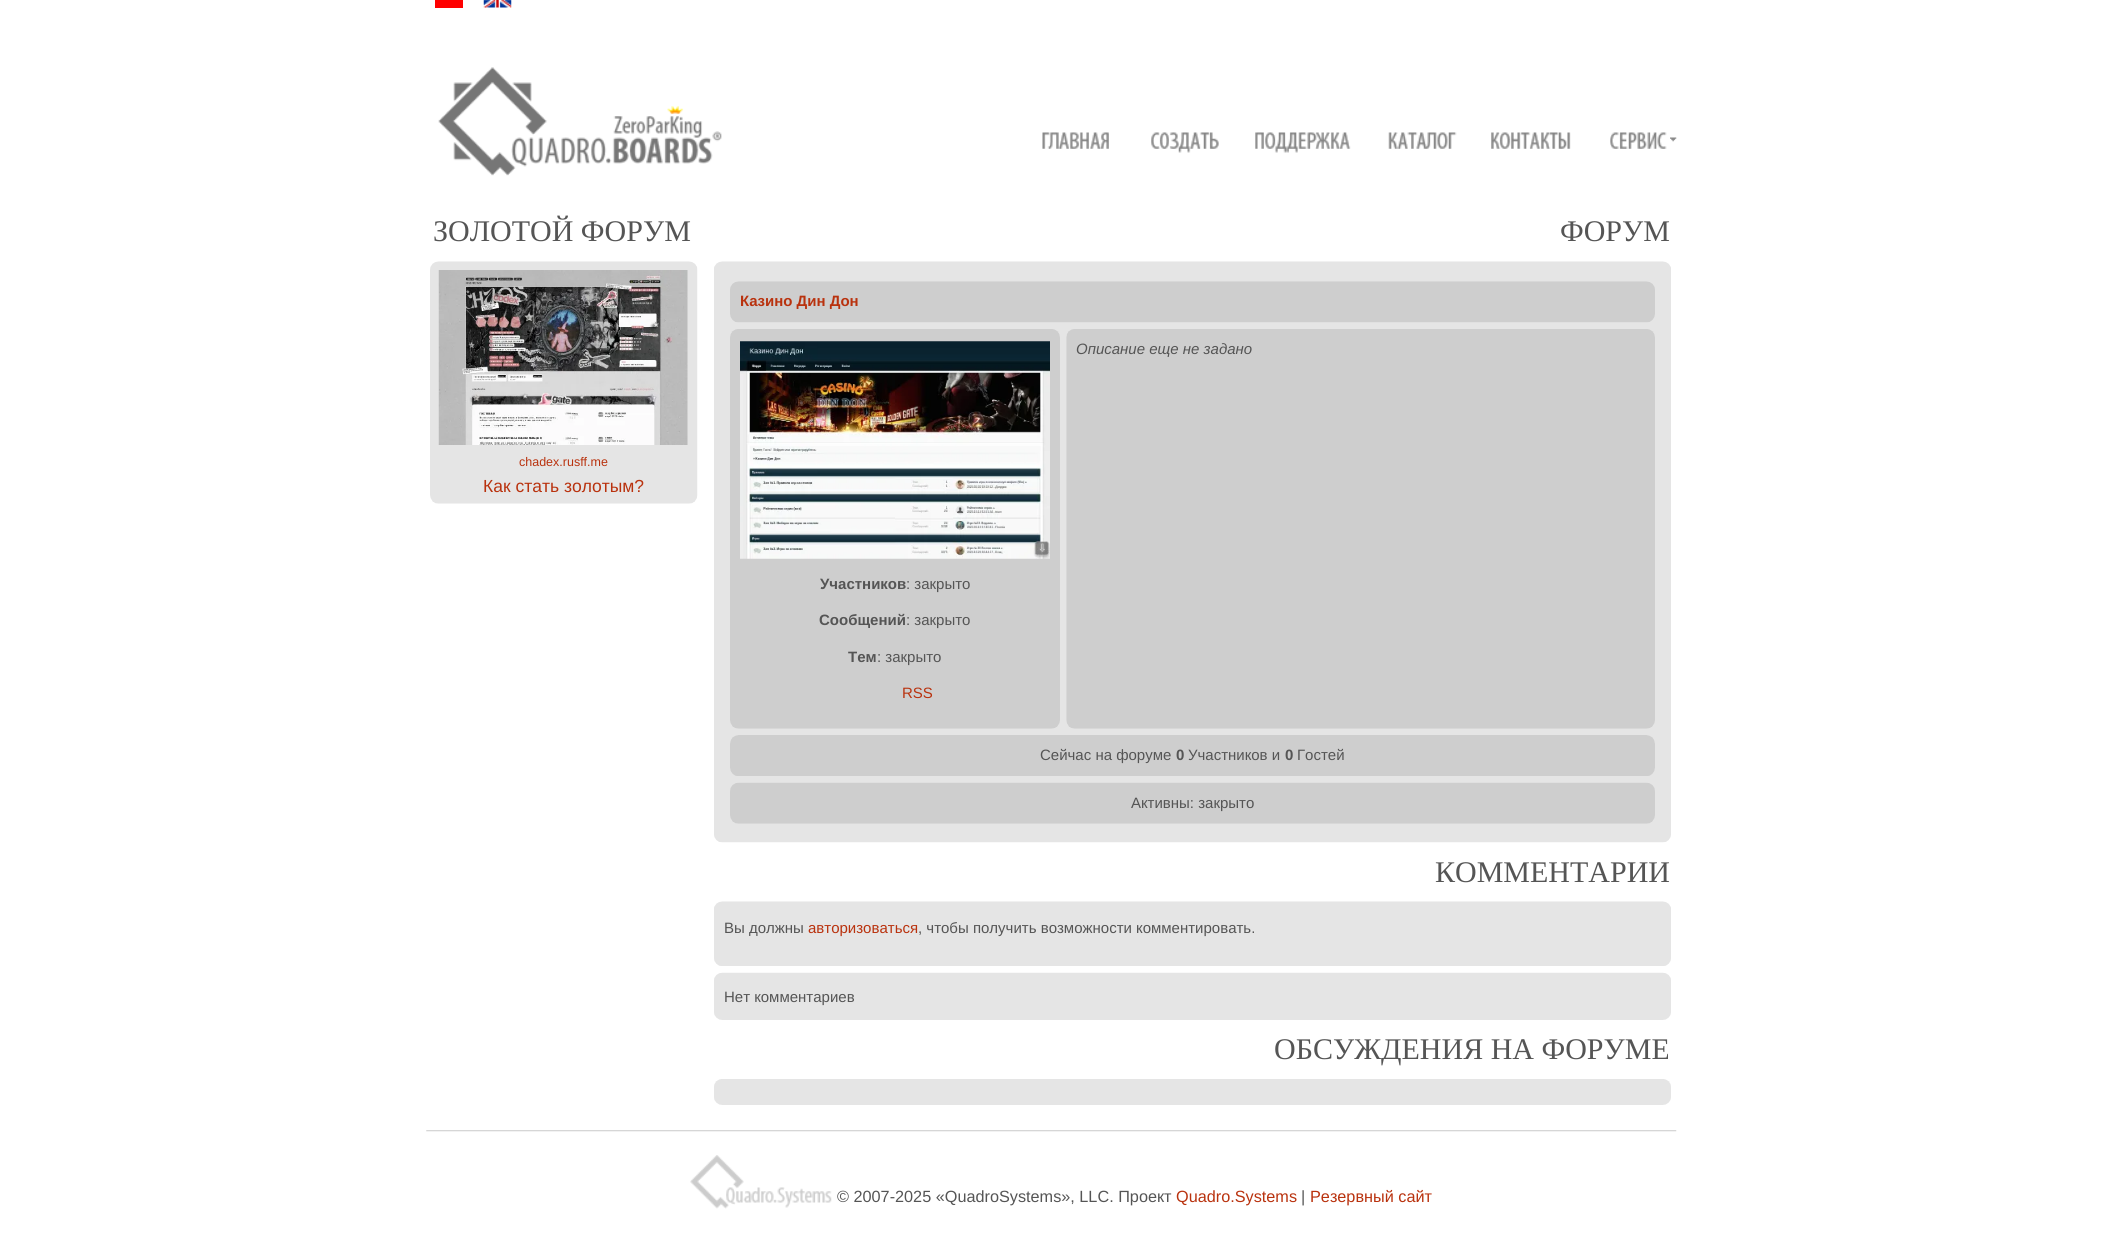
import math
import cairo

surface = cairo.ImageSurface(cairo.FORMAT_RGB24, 2102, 1242)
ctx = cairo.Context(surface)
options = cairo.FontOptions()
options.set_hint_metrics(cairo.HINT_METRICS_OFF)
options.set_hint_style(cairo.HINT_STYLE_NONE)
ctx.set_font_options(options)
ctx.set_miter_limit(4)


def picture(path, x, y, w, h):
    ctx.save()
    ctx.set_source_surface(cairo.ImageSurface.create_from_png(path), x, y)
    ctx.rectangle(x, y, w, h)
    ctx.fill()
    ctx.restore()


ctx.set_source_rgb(1, 1, 1)
ctx.paint()
ctx.set_source_rgb(1, 0, 0)
ctx.rectangle(435, 0, 28, 8)
ctx.fill()
picture("img1.png", 483, 0, 29, 8)
picture("img2.png", 438, 67, 284, 109)
picture("img3.png", 1042, 132, 67, 17)
picture("img4.png", 1151, 132, 68, 21)
picture("img5.png", 1255, 132, 96, 21)
picture("img6.png", 1388, 132, 69, 17)
picture("img7.png", 1491, 132, 80, 17)
picture("img8.png", 1670, 137, 7, 5)
picture("img9.png", 1610, 132, 57, 17)
ctx.select_font_face("Liberation Serif")
ctx.set_font_size(30)
ctx.set_source_rgb(0.333, 0.333, 0.333)
ctx.move_to(433, 241)
ctx.show_text("ЗОЛОТОЙ ФОРУМ")
picture("img10.png", 430, 261, 268, 243)
picture("img11.png", 438, 270, 250, 175)
ctx.select_font_face("Liberation Sans")
ctx.set_font_size(12.5)
ctx.set_source_rgb(0.725, 0.196, 0.055)
ctx.move_to(519, 466)
ctx.show_text("chadex.rusff.me")
ctx.set_font_size(17.5)
ctx.move_to(483, 492)
ctx.show_text("Как стать золотым?")
ctx.select_font_face("Liberation Serif")
ctx.set_font_size(30)
ctx.set_source_rgb(0.333, 0.333, 0.333)
ctx.move_to(1560, 241)
ctx.show_text("ФОРУМ")
picture("img12.png", 714, 261, 957, 582)
picture("img13.png", 730, 281, 925, 42)
ctx.select_font_face("Liberation Sans", cairo.FONT_SLANT_NORMAL, cairo.FONT_WEIGHT_BOLD)
ctx.set_font_size(15)
ctx.set_source_rgb(0.725, 0.196, 0.055)
ctx.move_to(740, 306)
ctx.show_text("Казино Дин Дон")
picture("img14.png", 1066, 329, 589, 400)
ctx.select_font_face("Liberation Sans", cairo.FONT_SLANT_ITALIC)
ctx.set_source_rgb(0.333, 0.333, 0.333)
ctx.move_to(1076, 354)
ctx.show_text("Описание еще не задано")
picture("img15.png", 730, 329, 330, 400)
picture("img16.png", 740, 341, 310, 218)
ctx.select_font_face("Liberation Sans", cairo.FONT_SLANT_NORMAL, cairo.FONT_WEIGHT_BOLD)
ctx.move_to(820, 589)
ctx.show_text("Участников")
ctx.select_font_face("Liberation Sans")
ctx.move_to(906, 589)
ctx.show_text(": закрыто")
ctx.select_font_face("Liberation Sans", cairo.FONT_SLANT_NORMAL, cairo.FONT_WEIGHT_BOLD)
ctx.move_to(819, 625)
ctx.show_text("Сообщений")
ctx.select_font_face("Liberation Sans")
ctx.move_to(906, 625)
ctx.show_text(": закрыто")
ctx.select_font_face("Liberation Sans", cairo.FONT_SLANT_NORMAL, cairo.FONT_WEIGHT_BOLD)
ctx.move_to(848, 662)
ctx.show_text("Тем")
ctx.select_font_face("Liberation Sans")
ctx.move_to(877, 662)
ctx.show_text(": закрыто")
ctx.set_source_rgb(0.725, 0.196, 0.055)
ctx.move_to(902, 698)
ctx.show_text("RSS")
picture("img17.png", 730, 735, 925, 41)
ctx.set_source_rgb(0.333, 0.333, 0.333)
ctx.move_to(1040, 760)
ctx.show_text("Сейчас на форуме")
ctx.select_font_face("Liberation Sans", cairo.FONT_SLANT_NORMAL, cairo.FONT_WEIGHT_BOLD)
ctx.move_to(1176, 760)
ctx.show_text("0")
ctx.select_font_face("Liberation Sans")
ctx.move_to(1188, 760)
ctx.show_text("Участников и")
ctx.select_font_face("Liberation Sans", cairo.FONT_SLANT_NORMAL, cairo.FONT_WEIGHT_BOLD)
ctx.move_to(1285, 760)
ctx.show_text("0")
ctx.select_font_face("Liberation Sans")
ctx.move_to(1297, 760)
ctx.show_text("Гостей")
picture("img18.png", 730, 782, 925, 42)
ctx.move_to(1131, 808)
ctx.show_text("Активны: закрыто")
ctx.select_font_face("Liberation Serif")
ctx.set_font_size(30)
ctx.move_to(1435, 882)
ctx.show_text("КОММЕНТАРИИ")
picture("img19.png", 714, 901, 957, 65)
ctx.select_font_face("Liberation Sans")
ctx.set_font_size(15)
ctx.move_to(724, 933)
ctx.show_text("Вы должны")
ctx.set_source_rgb(0.725, 0.196, 0.055)
ctx.move_to(808, 933)
ctx.show_text("авторизоваться")
ctx.set_source_rgb(0.333, 0.333, 0.333)
ctx.move_to(918, 933)
ctx.show_text(", чтобы получить возможности комментировать.")
picture("img20.png", 714, 972, 957, 48)
ctx.move_to(724, 1002)
ctx.show_text("Нет комментариев")
ctx.select_font_face("Liberation Serif")
ctx.set_font_size(30)
ctx.move_to(1274, 1059)
ctx.show_text("ОБСУЖДЕНИЯ НА ФОРУМЕ")
picture("img21.png", 714, 1079, 957, 26)
picture("img22.png", 426, 1130, 1251, 2)
picture("img23.png", 690, 1155, 142, 54)
ctx.select_font_face("Liberation Sans")
ctx.set_font_size(16.25)
ctx.move_to(837, 1202)
ctx.show_text("© 2007-2025 «QuadroSystems», LLC. Проект")
ctx.set_source_rgb(0.725, 0.196, 0.055)
ctx.move_to(1176, 1202)
ctx.show_text("Quadro.Systems")
ctx.set_source_rgb(0.333, 0.333, 0.333)
ctx.move_to(1301, 1202)
ctx.show_text("|")
ctx.set_source_rgb(0.725, 0.196, 0.055)
ctx.move_to(1310, 1202)
ctx.show_text("Резервный сайт")
surface.write_to_png("page.png")
